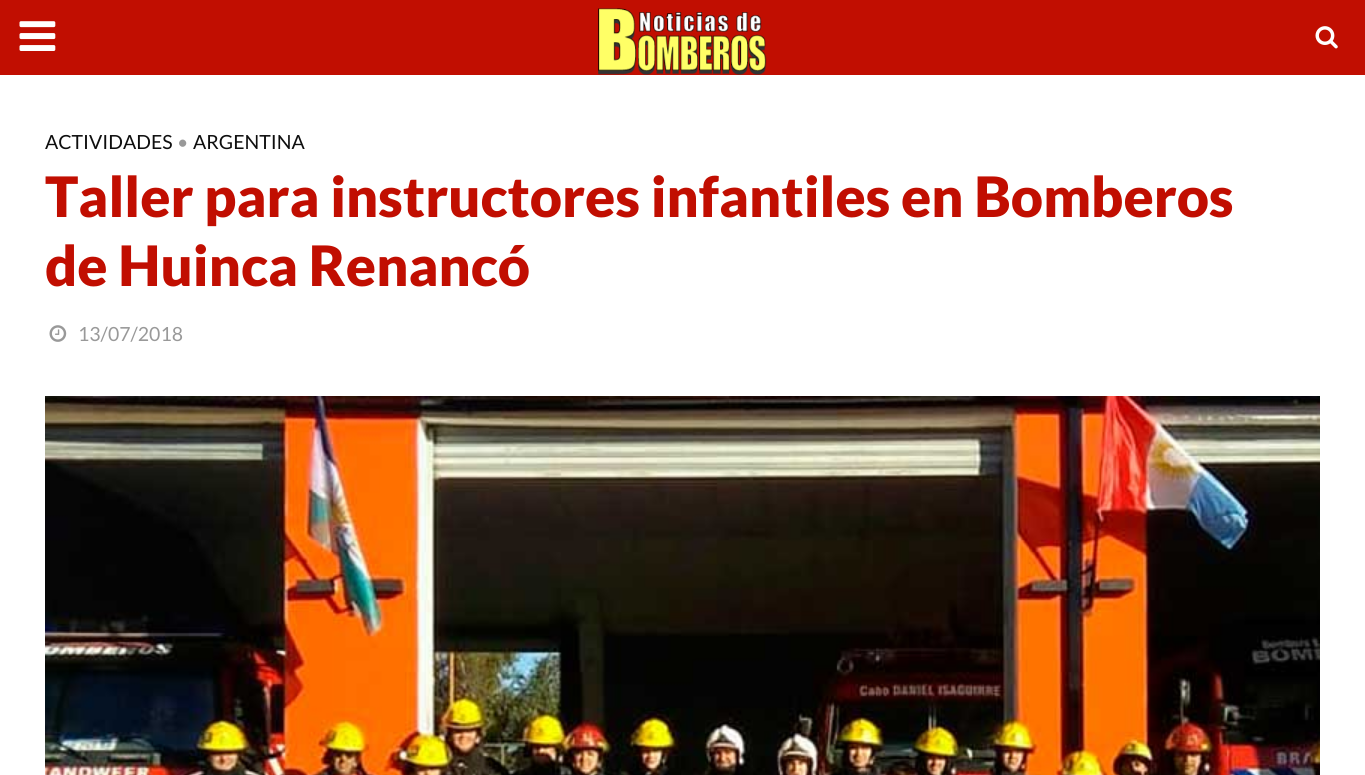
import math
import cairo

surface = cairo.ImageSurface(cairo.FORMAT_RGB24, 1365, 775)
ctx = cairo.Context(surface)
options = cairo.FontOptions()
options.set_hint_metrics(cairo.HINT_METRICS_OFF)
options.set_hint_style(cairo.HINT_STYLE_NONE)
ctx.set_font_options(options)
ctx.set_miter_limit(4)


def picture(path, x, y, w, h):
    ctx.save()
    ctx.set_source_surface(cairo.ImageSurface.create_from_png(path), x, y)
    ctx.rectangle(x, y, w, h)
    ctx.fill()
    ctx.restore()


ctx.set_source_rgb(1, 1, 1)
ctx.paint()
ctx.set_source_rgb(0.757, 0.055, 0.004)
ctx.rectangle(0, 0, 1365, 75)
ctx.fill()
picture("img1.png", 19, 21, 37, 30)
picture("img2.png", 598, 8, 169, 67)
picture("img3.png", 1315, 26, 23, 23)
ctx.select_font_face("Lato")
ctx.set_font_size(19.5)
ctx.set_source_rgb(0.055, 0.055, 0.055)
ctx.move_to(45, 149)
ctx.show_text("ACTIVIDADES")
ctx.set_source_rgb(0.6, 0.6, 0.6)
ctx.move_to(177, 149)
ctx.show_text("•")
ctx.set_source_rgb(0.055, 0.055, 0.055)
ctx.move_to(193, 149)
ctx.show_text("ARGENTINA")
ctx.select_font_face("Lato Black")
ctx.set_font_size(55.7)
ctx.set_source_rgb(0.757, 0.055, 0.004)
ctx.move_to(45, 217)
ctx.show_text("Taller para instructores infantiles en Bomberos")
ctx.move_to(45, 286)
ctx.show_text("de Huinca Renancó")
picture("img4.png", 49, 325, 18, 17)
ctx.select_font_face("Lato")
ctx.set_font_size(19.5)
ctx.set_source_rgb(0.6, 0.6, 0.6)
ctx.move_to(78, 341)
ctx.show_text("13/07/2018")
picture("img5.png", 45, 396, 1275, 379)
surface.write_to_png("page.png")
